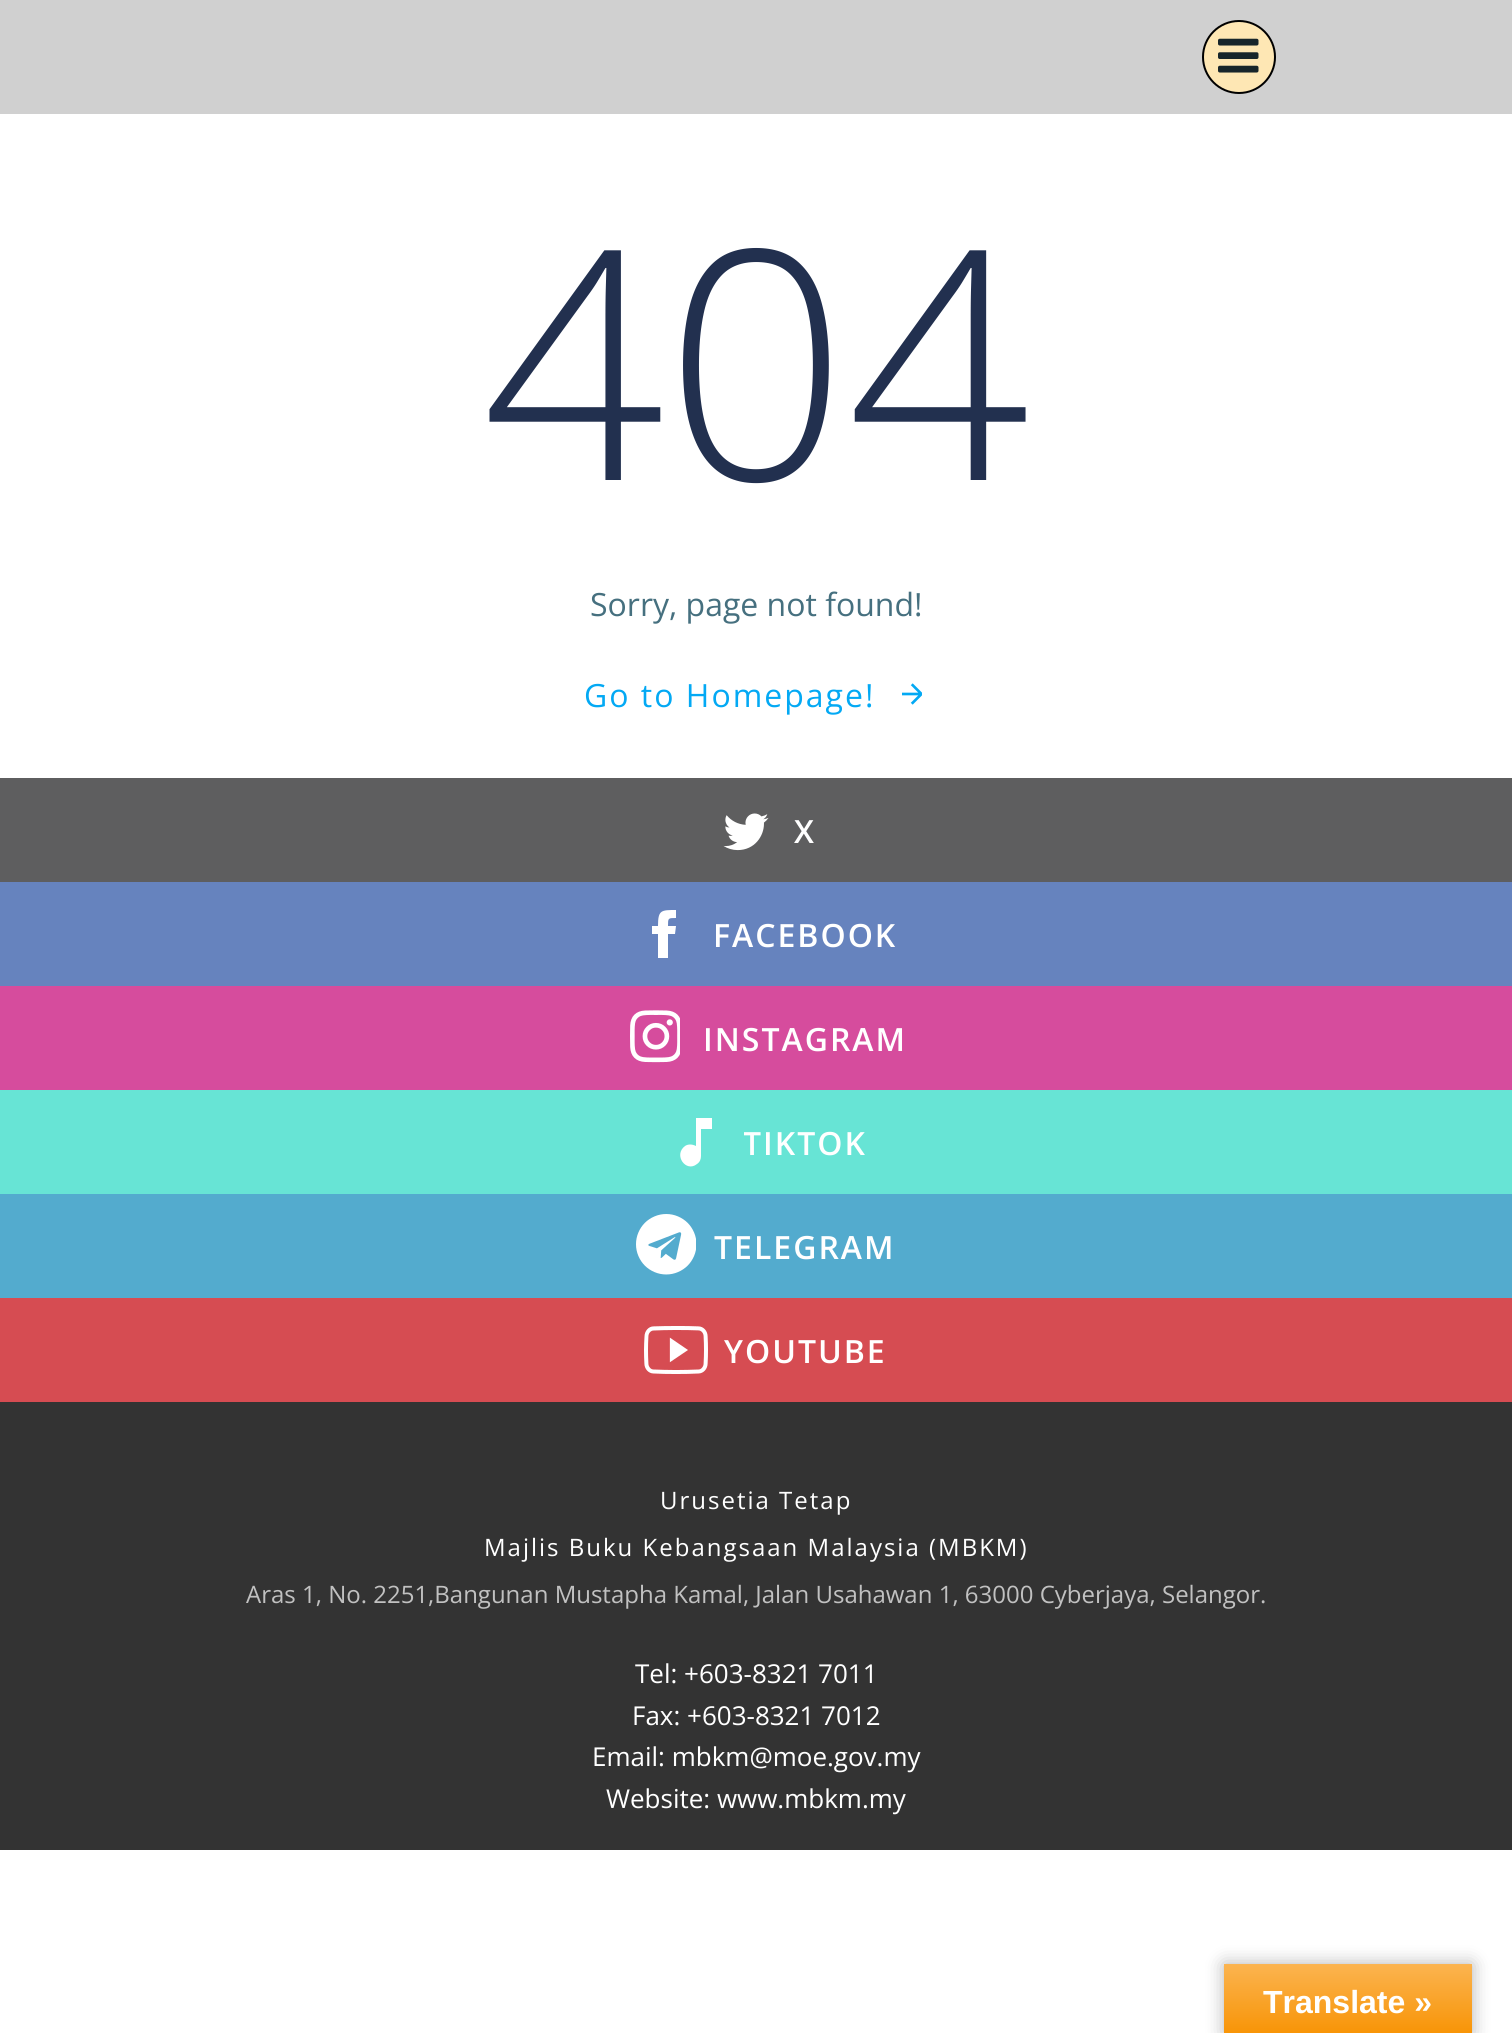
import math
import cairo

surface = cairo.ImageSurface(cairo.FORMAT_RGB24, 1512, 2033)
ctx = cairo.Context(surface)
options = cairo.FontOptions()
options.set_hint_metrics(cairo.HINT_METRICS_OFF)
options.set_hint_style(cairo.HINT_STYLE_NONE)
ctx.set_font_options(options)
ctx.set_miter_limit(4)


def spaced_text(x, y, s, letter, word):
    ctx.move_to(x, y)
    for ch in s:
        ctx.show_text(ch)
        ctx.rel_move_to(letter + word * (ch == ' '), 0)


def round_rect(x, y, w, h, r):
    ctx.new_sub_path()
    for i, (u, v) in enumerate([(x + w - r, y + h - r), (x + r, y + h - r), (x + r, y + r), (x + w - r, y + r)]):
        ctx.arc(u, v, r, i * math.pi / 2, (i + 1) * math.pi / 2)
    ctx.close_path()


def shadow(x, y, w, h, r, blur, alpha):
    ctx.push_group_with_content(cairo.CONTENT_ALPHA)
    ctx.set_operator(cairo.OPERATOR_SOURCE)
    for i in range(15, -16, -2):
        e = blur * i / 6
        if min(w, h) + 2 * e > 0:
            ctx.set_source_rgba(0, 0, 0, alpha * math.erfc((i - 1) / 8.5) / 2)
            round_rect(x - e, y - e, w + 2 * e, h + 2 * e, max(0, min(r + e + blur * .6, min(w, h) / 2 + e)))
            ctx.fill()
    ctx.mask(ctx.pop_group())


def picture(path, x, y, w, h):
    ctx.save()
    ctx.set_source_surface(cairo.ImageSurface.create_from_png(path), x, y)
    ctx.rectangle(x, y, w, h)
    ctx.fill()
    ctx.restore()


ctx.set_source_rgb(1, 1, 1)
ctx.paint()
ctx.set_source_rgb(0.816, 0.816, 0.816)
ctx.rectangle(0, 0, 1512, 114)
ctx.fill()
ctx.set_source_rgb(0.996, 0.906, 0.706)
ctx.arc(1239, 57, 36, 0, 2 * math.pi)
ctx.fill_preserve()
ctx.set_source_rgb(0, 0, 0)
ctx.stroke()
picture("img1.png", 1218, 38, 41, 35)
ctx.select_font_face("Open Sans Light")
ctx.set_font_size(320)
ctx.set_source_rgb(0.133, 0.188, 0.31)
ctx.move_to(482, 480)
ctx.show_text("404")
ctx.select_font_face("Open Sans")
ctx.set_font_size(32)
ctx.set_source_rgb(0.275, 0.439, 0.498)
ctx.move_to(590, 616)
ctx.show_text("Sorry, page not found!")
ctx.set_source_rgb(0.012, 0.663, 0.957)
spaced_text(584, 707, "Go to Homepage!", 2, 0)
picture("img2.png", 902, 683, 20, 22)
ctx.set_source_rgb(0.369, 0.369, 0.373)
ctx.rectangle(0, 778, 1512, 104)
ctx.fill()
picture("img3.png", 723, 813, 46, 38)
ctx.select_font_face("Open Sans SemiBold")
ctx.set_source_rgb(1, 1, 1)
spaced_text(794, 843, "X", 2, 0)
ctx.set_source_rgb(0.4, 0.514, 0.745)
ctx.rectangle(0, 882, 1512, 104)
ctx.fill()
ctx.set_source_rgb(1, 1, 1)
ctx.new_path()
ctx.move_to(668, 926)
ctx.line_to(676, 926)
ctx.line_to(675, 934)
ctx.line_to(668, 934)
ctx.line_to(668, 958)
ctx.line_to(658, 958)
ctx.line_to(658, 934)
ctx.line_to(652, 934)
ctx.line_to(652, 926)
ctx.line_to(658, 926)
ctx.curve_to(658, 910, 661, 910, 676, 910)
ctx.line_to(676, 918)
ctx.curve_to(668, 918, 668, 918, 668, 926)
ctx.close_path()
ctx.fill()
spaced_text(713, 947, "FACEBOOK", 2, 0)
ctx.set_source_rgb(0.839, 0.298, 0.616)
ctx.rectangle(0, 986, 1512, 104)
ctx.fill()
picture("img4.png", 630, 1010, 50, 53)
ctx.set_source_rgb(1, 1, 1)
spaced_text(703, 1051, "INSTAGRAM", 2, 0)
ctx.set_source_rgb(0.404, 0.894, 0.835)
ctx.rectangle(0, 1090, 1512, 104)
ctx.fill()
ctx.set_source_rgb(1, 1, 1)
ctx.new_path()
ctx.move_to(696, 1118)
ctx.line_to(712, 1118)
ctx.line_to(712, 1129)
ctx.line_to(701, 1129)
ctx.line_to(701, 1156)
ctx.curve_to(701, 1159, 700, 1162, 697, 1164)
ctx.curve_to(686, 1173, 673, 1155, 685, 1146)
ctx.curve_to(688, 1144, 692, 1144, 696, 1146)
ctx.close_path()
ctx.fill()
ctx.save()
ctx.rectangle(744, 1120, 122, 44)
ctx.clip()
spaced_text(743, 1155, "TIKTOK", 2, 0)
ctx.restore()
ctx.set_source_rgb(0.325, 0.671, 0.808)
ctx.rectangle(0, 1194, 1512, 104)
ctx.fill()
picture("img5.png", 636, 1214, 60, 61)
ctx.set_source_rgb(1, 1, 1)
spaced_text(714, 1259, "TELEGRAM", 2, 0)
ctx.set_source_rgb(0.839, 0.298, 0.322)
ctx.rectangle(0, 1298, 1512, 104)
ctx.fill()
picture("img6.png", 644, 1326, 64, 48)
ctx.set_source_rgb(1, 1, 1)
spaced_text(724, 1363, "YOUTUBE", 2, 0)
ctx.set_source_rgb(0.2, 0.2, 0.2)
ctx.rectangle(0, 1402, 1512, 448)
ctx.fill()
ctx.select_font_face("Open Sans")
ctx.set_font_size(24)
ctx.set_source_rgb(1, 1, 1)
spaced_text(660, 1509, "Urusetia Tetap", 2, 0)
spaced_text(484, 1556, "Majlis Buku Kebangsaan Malaysia (MBKM)", 2, 0)
ctx.set_source_rgb(0.757, 0.757, 0.757)
ctx.move_to(246, 1603)
ctx.show_text("Aras 1, No. 2251,Bangunan Mustapha Kamal, Jalan Usahawan 1, 63000 Cyberjaya, Selangor.")
ctx.set_font_size(26)
ctx.set_source_rgb(1, 1, 1)
ctx.move_to(635, 1683)
ctx.show_text("Tel: +603-8321 7011")
ctx.move_to(632, 1725)
ctx.show_text("Fax: +603-8321 7012")
ctx.move_to(592, 1766)
ctx.show_text("Email: mbkm@moe.gov.my")
ctx.move_to(606, 1808)
ctx.show_text("Website: www.mbkm.my")
ctx.set_source_rgb(0, 0, 0)
shadow(1224, 1964, 248, 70, 0, 9, 0.3)
gradient = cairo.LinearGradient(1348, 1964, 1348, 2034)
gradient.add_color_stop_rgba(0, 0.984, 0.706, 0.314, 1)
gradient.add_color_stop_rgba(1, 0.973, 0.58, 0.024, 1)
ctx.set_source(gradient)
ctx.rectangle(1224, 1964, 248, 69)
ctx.fill()
ctx.select_font_face("Liberation Sans", cairo.FONT_SLANT_NORMAL, cairo.FONT_WEIGHT_BOLD)
ctx.set_font_size(32)
ctx.set_source_rgb(1, 1, 1)
ctx.move_to(1263, 2013)
ctx.show_text("Translate »")
surface.write_to_png("page.png")
